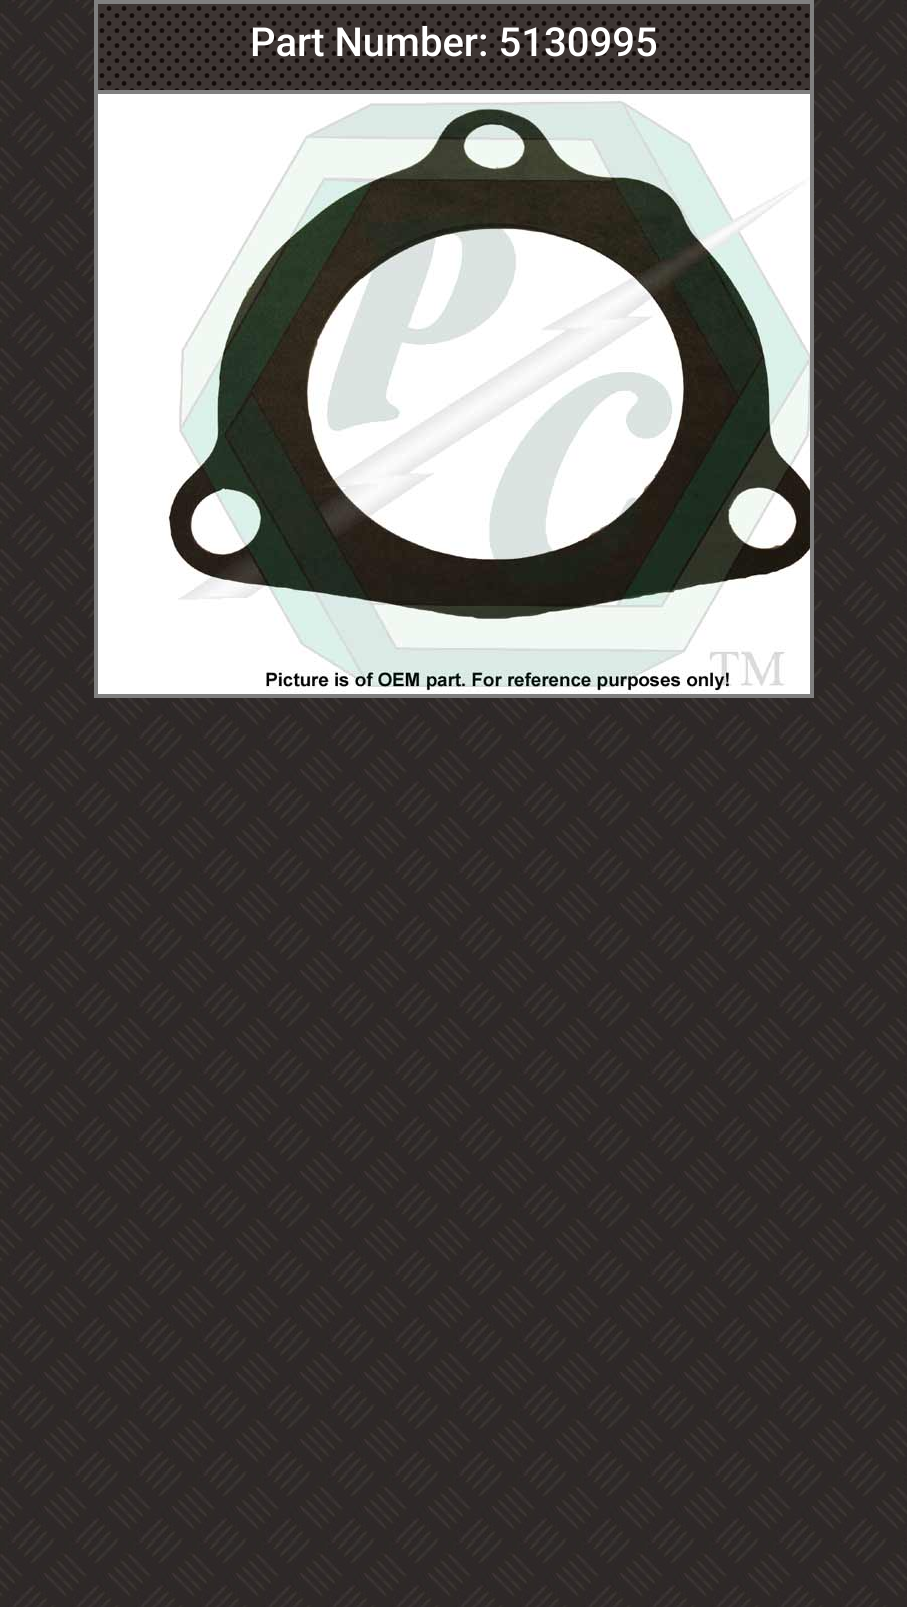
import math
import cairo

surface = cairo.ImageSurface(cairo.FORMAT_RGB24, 907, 1607)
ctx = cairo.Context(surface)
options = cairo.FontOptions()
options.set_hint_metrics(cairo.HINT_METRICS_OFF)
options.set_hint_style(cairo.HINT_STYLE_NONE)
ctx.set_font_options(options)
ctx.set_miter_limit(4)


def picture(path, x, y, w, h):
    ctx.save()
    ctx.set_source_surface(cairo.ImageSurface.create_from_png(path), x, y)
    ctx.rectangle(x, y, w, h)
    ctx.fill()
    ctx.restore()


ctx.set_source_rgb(1, 1, 1)
ctx.paint()
picture("img1.png", 0, 0, 907, 1607)
ctx.set_source_rgb(1, 1, 1)
ctx.rectangle(98, 94, 64, 600)
ctx.fill()
ctx.rectangle(96, 2, 716, 694)
ctx.set_source_rgb(0.502, 0.502, 0.502)
ctx.set_line_width(4)
ctx.stroke()
picture("img2.png", 98, 4, 712, 86)
ctx.rectangle(98, 90, 712, 4)
ctx.fill()
ctx.select_font_face("Roboto Medium")
ctx.set_font_size(40)
ctx.set_source_rgb(1, 1, 1)
ctx.move_to(250, 56)
ctx.show_text("Part Number: 5130995")
picture("img3.png", 162, 94, 648, 600)
surface.write_to_png("page.png")
